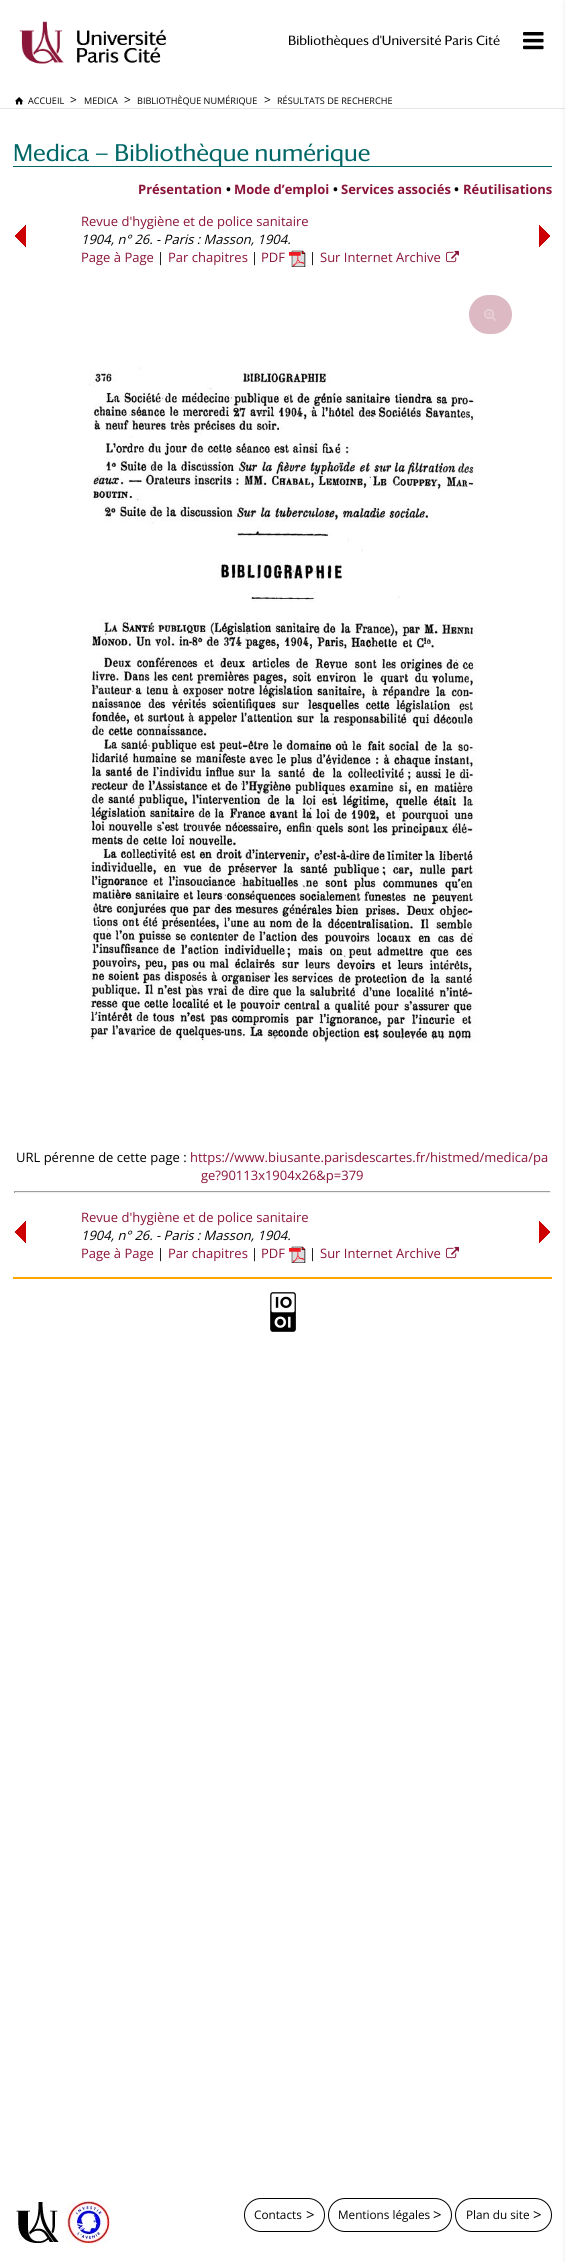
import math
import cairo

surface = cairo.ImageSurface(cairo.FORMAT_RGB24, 565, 2262)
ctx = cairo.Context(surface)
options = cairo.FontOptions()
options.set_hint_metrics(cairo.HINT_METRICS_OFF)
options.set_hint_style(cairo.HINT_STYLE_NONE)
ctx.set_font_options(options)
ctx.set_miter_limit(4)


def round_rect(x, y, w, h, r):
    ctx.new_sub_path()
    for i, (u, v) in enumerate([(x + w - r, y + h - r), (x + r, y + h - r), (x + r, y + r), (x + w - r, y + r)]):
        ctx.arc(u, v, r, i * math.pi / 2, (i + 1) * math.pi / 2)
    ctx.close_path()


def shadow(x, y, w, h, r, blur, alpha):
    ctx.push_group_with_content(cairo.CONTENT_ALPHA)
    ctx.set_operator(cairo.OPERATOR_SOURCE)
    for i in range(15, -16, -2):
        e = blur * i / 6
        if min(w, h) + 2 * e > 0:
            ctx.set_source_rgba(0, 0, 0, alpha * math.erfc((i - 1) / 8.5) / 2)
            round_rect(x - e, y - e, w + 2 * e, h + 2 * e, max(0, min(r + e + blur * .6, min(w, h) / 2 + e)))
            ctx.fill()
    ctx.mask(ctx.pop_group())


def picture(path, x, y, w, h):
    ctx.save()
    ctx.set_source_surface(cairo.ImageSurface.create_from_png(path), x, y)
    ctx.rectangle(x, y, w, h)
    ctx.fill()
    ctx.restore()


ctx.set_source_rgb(1, 1, 1)
ctx.paint()
ctx.set_source_rgb(0.902, 0.902, 0.902)
ctx.rectangle(0, 108, 565, 1)
ctx.fill()
picture("img1.png", 19, 21, 147, 43)
ctx.select_font_face("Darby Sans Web")
ctx.set_font_size(13)
ctx.set_source_rgb(0, 0, 0)
ctx.move_to(288, 45)
ctx.show_text("Bibliothèques d'Université Paris Cité")
picture("img2.png", 523, 32, 21, 18)
ctx.set_source_rgb(0, 0, 0)
shadow(565, 2, 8, 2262, 0, 2.5, 0.1)
picture("img3.png", 15, 97, 9, 8)
ctx.select_font_face("Open Sans")
ctx.set_font_size(9.1)
ctx.set_source_rgb(0, 0, 0)
ctx.move_to(28, 104)
ctx.show_text("ACCUEIL")
ctx.set_font_size(12)
ctx.move_to(70, 104)
ctx.show_text(">")
ctx.set_font_size(9.1)
ctx.move_to(84, 104)
ctx.show_text("MEDICA")
ctx.set_font_size(12)
ctx.move_to(124, 104)
ctx.show_text(">")
ctx.set_font_size(9.1)
ctx.move_to(137, 104)
ctx.show_text("BIBLIOTHÈQUE NUMÉRIQUE")
ctx.set_font_size(12)
ctx.move_to(264, 104)
ctx.show_text(">")
ctx.set_font_size(9.1)
ctx.move_to(277, 104)
ctx.show_text("RÉSULTATS DE RECHERCHE")
ctx.set_source_rgb(0, 0.4, 0.4)
ctx.rectangle(13, 166, 539, 1)
ctx.fill()
ctx.select_font_face("Darby Sans Web")
ctx.set_font_size(23.4)
ctx.move_to(13, 161)
ctx.show_text("Medica — Bibliothèque numérique")
ctx.select_font_face("Open Sans", cairo.FONT_SLANT_NORMAL, cairo.FONT_WEIGHT_BOLD)
ctx.set_font_size(13)
ctx.set_source_rgb(0.541, 0.082, 0.22)
ctx.move_to(138, 194)
ctx.show_text("Présentation")
ctx.set_source_rgb(0, 0, 0)
ctx.move_to(226, 194)
ctx.show_text("•")
ctx.set_source_rgb(0.541, 0.082, 0.22)
ctx.move_to(234, 194)
ctx.show_text("Mode d’emploi")
ctx.set_source_rgb(0, 0, 0)
ctx.move_to(333, 194)
ctx.show_text("•")
ctx.set_source_rgb(0.541, 0.082, 0.22)
ctx.move_to(341, 194)
ctx.show_text("Services associés")
ctx.set_source_rgb(0, 0, 0)
ctx.move_to(454, 194)
ctx.show_text("•")
ctx.set_source_rgb(0.541, 0.082, 0.22)
ctx.move_to(463, 194)
ctx.show_text("Réutilisations")
picture("img4.png", 15, 225, 11, 22)
ctx.select_font_face("Open Sans")
ctx.move_to(81, 226)
ctx.show_text("Revue d'hygiène et de police sanitaire")
ctx.select_font_face("Open Sans", cairo.FONT_SLANT_ITALIC)
ctx.set_source_rgb(0, 0, 0)
ctx.move_to(81, 244)
ctx.show_text("1904, n° 26. - Paris : Masson, 1904.")
ctx.select_font_face("Open Sans")
ctx.set_source_rgb(0.541, 0.082, 0.22)
ctx.move_to(81, 262)
ctx.show_text("Page à Page")
ctx.set_source_rgb(0, 0, 0)
ctx.move_to(157, 262)
ctx.show_text("|")
ctx.set_source_rgb(0.541, 0.082, 0.22)
ctx.move_to(168, 262)
ctx.show_text("Par chapitres")
ctx.set_source_rgb(0, 0, 0)
ctx.move_to(251, 262)
ctx.show_text("|")
ctx.set_source_rgb(0.541, 0.082, 0.22)
ctx.move_to(261, 262)
ctx.show_text("PDF")
picture("img5.png", 289, 250, 17, 17)
ctx.set_source_rgb(0, 0, 0)
ctx.move_to(309, 262)
ctx.show_text("|")
ctx.set_source_rgb(0.541, 0.082, 0.22)
ctx.move_to(320, 262)
ctx.show_text("Sur Internet Archive")
picture("img6.png", 446, 250, 13, 13)
picture("img7.png", 539, 225, 11, 22)
ctx.set_source_rgb(0.863, 0.725, 0.765)
round_rect(470, 296, 41, 37, 18.5)
ctx.fill_preserve()
ctx.stroke()
picture("img8.png", 484, 309, 12, 12)
picture("img9.png", 89, 367, 387, 675)
ctx.set_source_rgb(0, 0, 0)
ctx.move_to(16, 1162)
ctx.show_text("URL pérenne de cette page :")
ctx.set_source_rgb(0.541, 0.082, 0.22)
ctx.move_to(190, 1162)
ctx.show_text("https://www.biusante.parisdescartes.fr/histmed/medica/pa")
ctx.move_to(201, 1180)
ctx.show_text("ge?90113x1904x26&p=379")
ctx.set_source_rgb(0.624, 0.624, 0.624)
ctx.rectangle(14, 1191, 537, 1)
ctx.fill()
ctx.set_source_rgb(0.933, 0.933, 0.933)
ctx.rectangle(550, 1191, 1, 2)
ctx.fill()
ctx.rectangle(14, 1192, 537, 1)
ctx.fill()
ctx.set_source_rgb(0.624, 0.624, 0.624)
ctx.rectangle(14, 1191, 1, 2)
ctx.fill()
picture("img4.png", 15, 1221, 11, 22)
ctx.set_source_rgb(0.541, 0.082, 0.22)
ctx.move_to(81, 1222)
ctx.show_text("Revue d'hygiène et de police sanitaire")
ctx.select_font_face("Open Sans", cairo.FONT_SLANT_ITALIC)
ctx.set_source_rgb(0, 0, 0)
ctx.move_to(81, 1240)
ctx.show_text("1904, n° 26. - Paris : Masson, 1904.")
ctx.select_font_face("Open Sans")
ctx.set_source_rgb(0.541, 0.082, 0.22)
ctx.move_to(81, 1258)
ctx.show_text("Page à Page")
ctx.set_source_rgb(0, 0, 0)
ctx.move_to(157, 1258)
ctx.show_text("|")
ctx.set_source_rgb(0.541, 0.082, 0.22)
ctx.move_to(168, 1258)
ctx.show_text("Par chapitres")
ctx.set_source_rgb(0, 0, 0)
ctx.move_to(251, 1258)
ctx.show_text("|")
ctx.set_source_rgb(0.541, 0.082, 0.22)
ctx.move_to(261, 1258)
ctx.show_text("PDF")
picture("img5.png", 289, 1246, 17, 17)
ctx.set_source_rgb(0, 0, 0)
ctx.move_to(309, 1258)
ctx.show_text("|")
ctx.set_source_rgb(0.541, 0.082, 0.22)
ctx.move_to(320, 1258)
ctx.show_text("Sur Internet Archive")
picture("img6.png", 446, 1246, 13, 13)
picture("img7.png", 539, 1221, 11, 22)
ctx.set_source_rgb(1, 0.647, 0)
ctx.rectangle(13, 1277, 539, 2)
ctx.fill()
picture("img10.png", 270, 1292, 26, 40)
picture("img11.png", 16, 2201, 43, 43)
picture("img12.png", 67, 2201, 43, 43)
round_rect(244.5, 2198.5, 80, 33, 16.5)
ctx.set_source_rgb(0, 0, 0)
ctx.set_line_width(1)
ctx.stroke()
ctx.set_font_size(11.75)
ctx.move_to(254, 2219)
ctx.show_text("Contacts")
ctx.set_font_size(15)
ctx.move_to(306, 2220)
ctx.show_text(">")
round_rect(328.5, 2198.5, 123, 33, 16.5)
ctx.stroke()
ctx.set_font_size(11.75)
ctx.move_to(338, 2219)
ctx.show_text("Mentions légales")
ctx.set_font_size(15)
ctx.move_to(433, 2220)
ctx.show_text(">")
round_rect(455.5, 2198.5, 96, 33, 16.5)
ctx.stroke()
ctx.set_font_size(11.75)
ctx.move_to(466, 2219)
ctx.show_text("Plan du site")
ctx.set_font_size(15)
ctx.move_to(533, 2220)
ctx.show_text(">")
surface.write_to_png("page.png")
